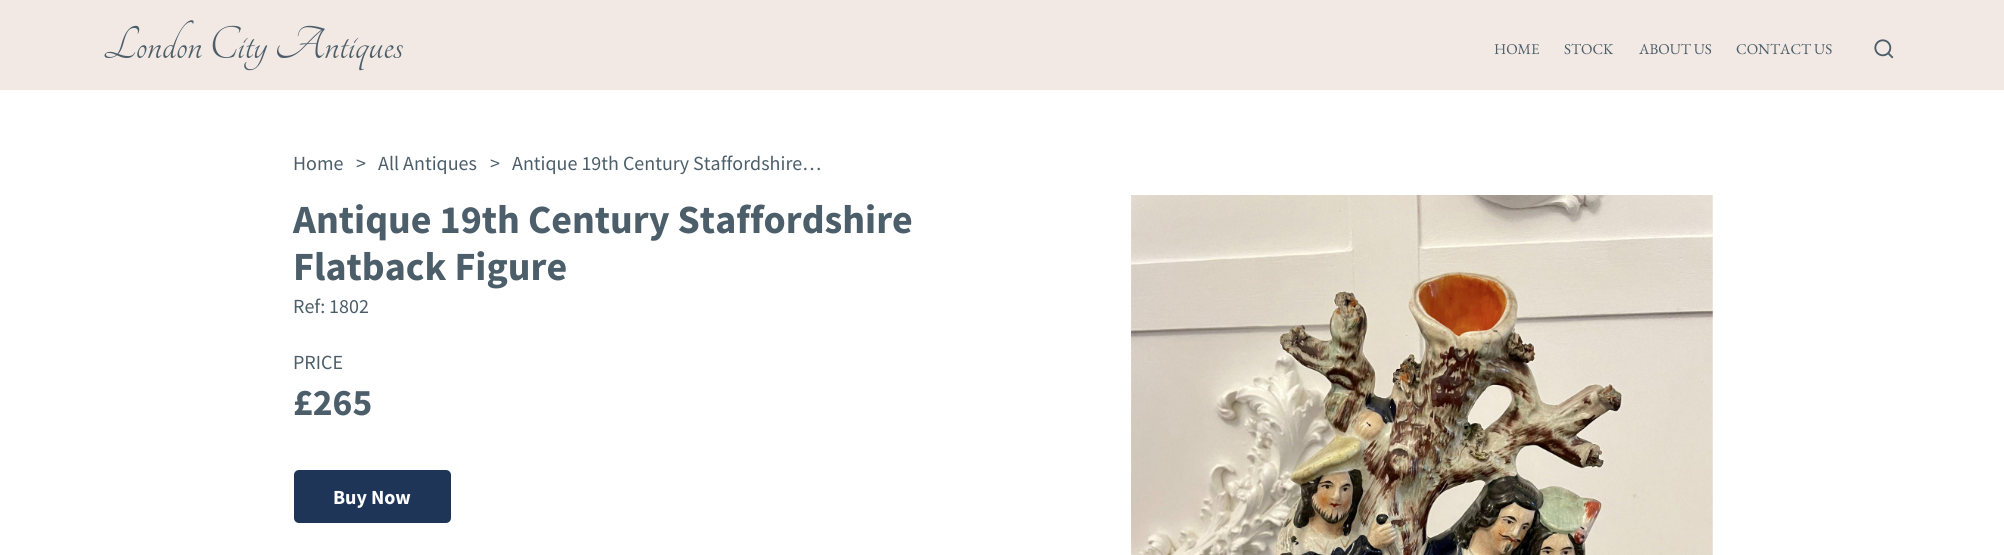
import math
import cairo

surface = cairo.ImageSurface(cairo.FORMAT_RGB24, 2004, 555)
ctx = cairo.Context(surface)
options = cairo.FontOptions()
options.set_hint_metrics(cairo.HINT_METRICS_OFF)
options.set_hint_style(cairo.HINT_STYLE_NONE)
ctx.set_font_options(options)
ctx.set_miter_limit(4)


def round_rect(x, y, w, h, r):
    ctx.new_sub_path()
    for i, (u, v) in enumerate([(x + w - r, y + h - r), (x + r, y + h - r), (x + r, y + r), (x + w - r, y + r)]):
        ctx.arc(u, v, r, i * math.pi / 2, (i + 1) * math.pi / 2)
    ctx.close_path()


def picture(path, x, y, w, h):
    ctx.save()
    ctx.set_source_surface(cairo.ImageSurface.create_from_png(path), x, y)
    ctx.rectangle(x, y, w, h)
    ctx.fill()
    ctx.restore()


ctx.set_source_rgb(1, 1, 1)
ctx.paint()
ctx.set_source_rgb(0.953, 0.914, 0.894)
ctx.rectangle(0, 0, 2004, 90)
ctx.fill()
ctx.select_font_face("Tangerine")
ctx.set_font_size(50)
ctx.set_source_rgb(0.298, 0.369, 0.412)
ctx.move_to(103, 58)
ctx.show_text("London City Antiques")
ctx.select_font_face("EB Garamond")
ctx.set_font_size(15)
ctx.move_to(1494, 54)
ctx.show_text("HOME")
ctx.move_to(1564, 54)
ctx.show_text("STOCK")
ctx.move_to(1639, 54)
ctx.show_text("ABOUT US")
ctx.move_to(1736, 54)
ctx.show_text("CONTACT US")
picture("img1.png", 1874, 39, 20, 20)
ctx.select_font_face("Source Sans Pro")
ctx.set_font_size(20)
ctx.move_to(293, 170)
ctx.show_text("Home")
ctx.move_to(356, 170)
ctx.show_text(">")
ctx.move_to(378, 170)
ctx.show_text("All Antiques")
ctx.move_to(490, 170)
ctx.show_text(">")
ctx.move_to(512, 170)
ctx.show_text("Antique 19th Century Staffordshire…")
ctx.select_font_face("Source Sans Pro", cairo.FONT_SLANT_NORMAL, cairo.FONT_WEIGHT_BOLD)
ctx.set_font_size(40)
ctx.move_to(293, 233)
ctx.show_text("Antique 19th Century Staffordshire")
ctx.move_to(293, 280)
ctx.show_text("Flatback Figure")
ctx.select_font_face("Source Sans Pro")
ctx.set_font_size(20)
ctx.move_to(293, 313)
ctx.show_text("Ref: 1802")
ctx.move_to(293, 369)
ctx.show_text("PRICE")
ctx.select_font_face("Source Sans Pro", cairo.FONT_SLANT_NORMAL, cairo.FONT_WEIGHT_BOLD)
ctx.set_font_size(37.5)
ctx.move_to(293, 415)
ctx.show_text("£265")
ctx.set_source_rgb(0.118, 0.208, 0.345)
round_rect(294, 470, 157, 53, 5)
ctx.fill()
ctx.set_font_size(20)
ctx.set_source_rgb(1, 1, 1)
ctx.move_to(333, 504)
ctx.show_text("Buy Now")
picture("img2.png", 1131, 195, 582, 360)
picture("img3.png", 1131, 195, 582, 360)
surface.write_to_png("page.png")
